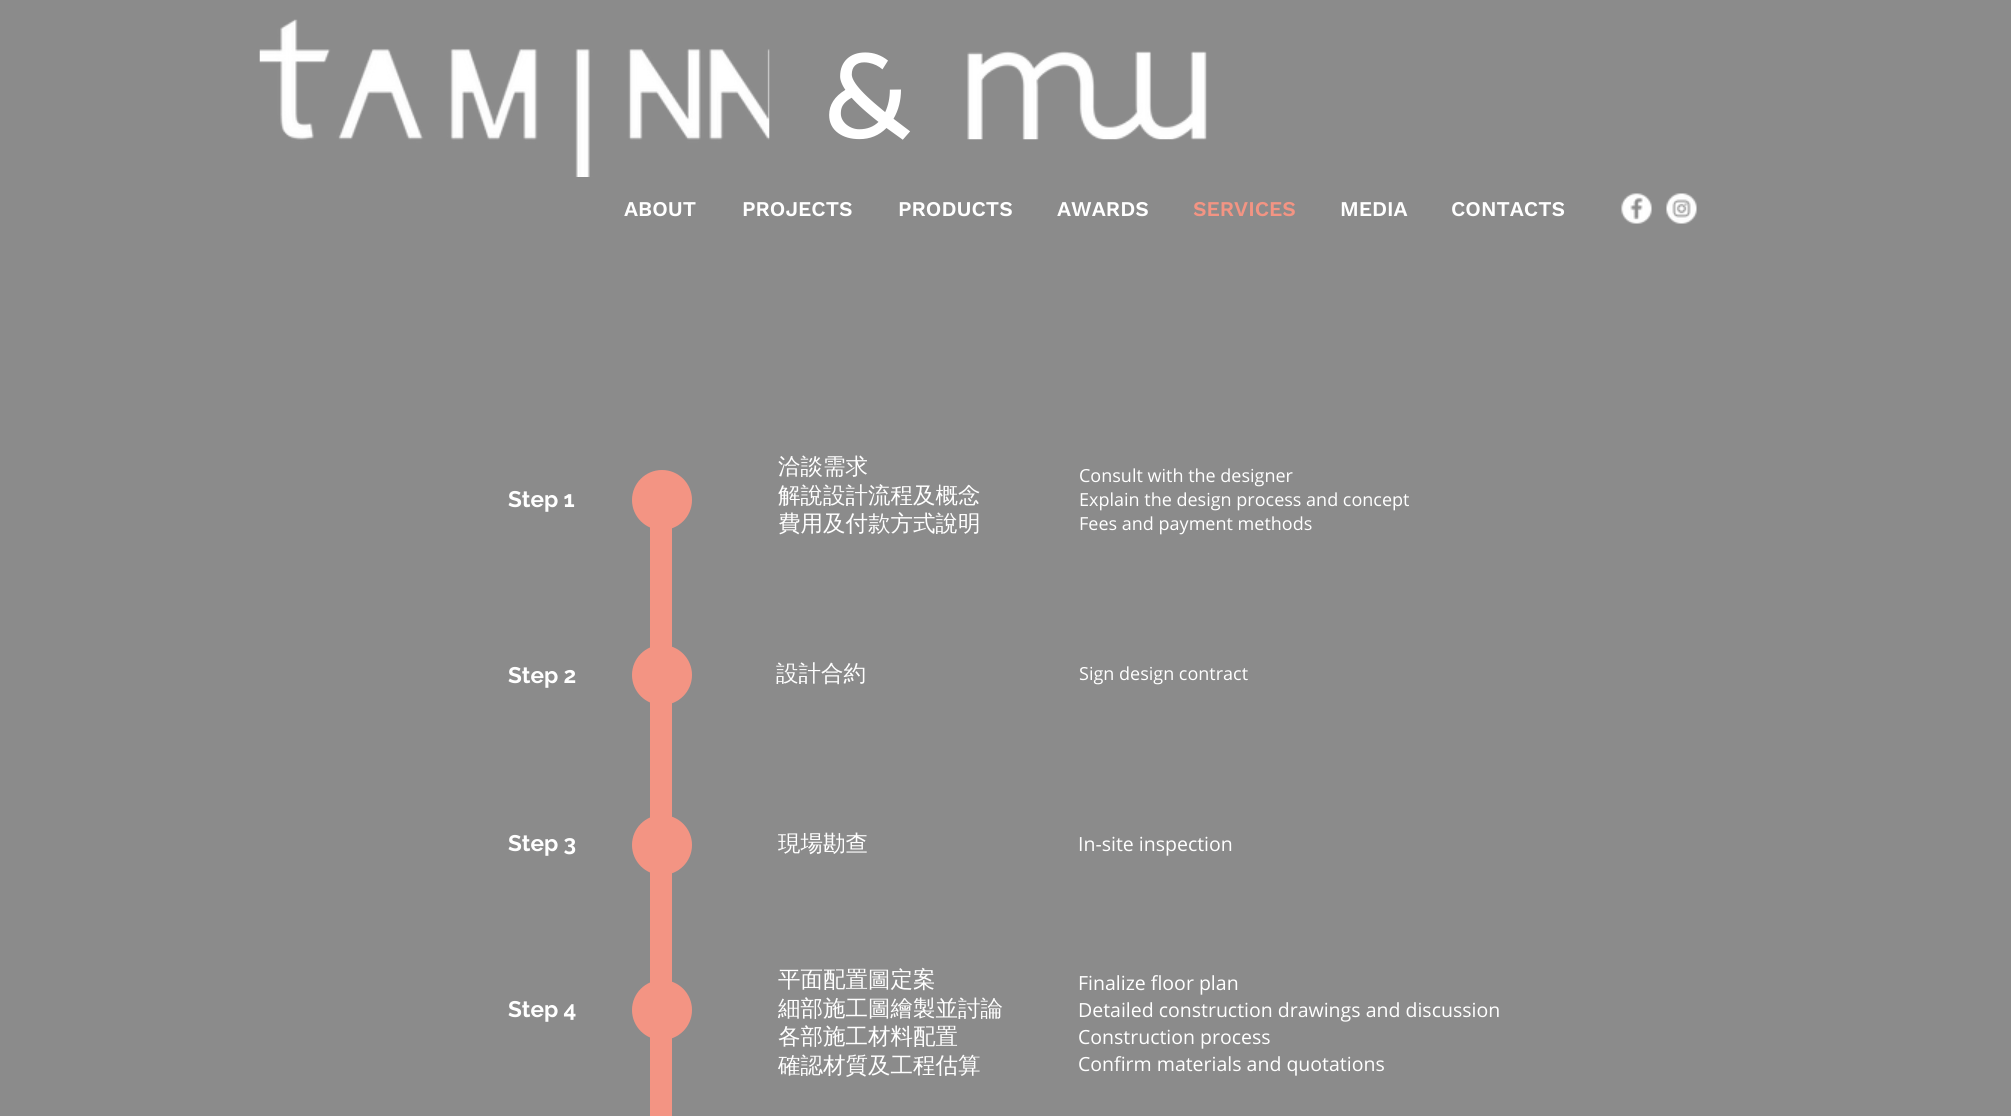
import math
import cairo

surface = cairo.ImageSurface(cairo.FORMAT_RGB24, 2011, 1116)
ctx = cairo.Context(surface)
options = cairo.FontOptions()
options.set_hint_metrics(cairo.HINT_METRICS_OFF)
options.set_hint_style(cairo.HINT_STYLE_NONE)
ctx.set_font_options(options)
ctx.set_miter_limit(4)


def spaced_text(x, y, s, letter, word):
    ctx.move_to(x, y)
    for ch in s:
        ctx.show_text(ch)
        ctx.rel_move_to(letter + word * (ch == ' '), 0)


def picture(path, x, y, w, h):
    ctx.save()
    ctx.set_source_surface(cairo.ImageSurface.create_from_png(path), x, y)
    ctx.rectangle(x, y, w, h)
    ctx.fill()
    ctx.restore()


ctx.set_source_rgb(0.545, 0.545, 0.545)
ctx.paint()
picture("img1.png", 259, 19, 511, 158)
ctx.select_font_face("Spinnaker")
ctx.set_font_size(122)
ctx.set_source_rgb(1, 1, 1)
spaced_text(821, 138, "&", 6, 0)
picture("img2.png", 967, 51, 240, 89)
ctx.select_font_face("Work Sans SemiBold")
ctx.set_font_size(21)
ctx.move_to(624, 216)
ctx.show_text("ABOUT")
ctx.move_to(742, 216)
ctx.show_text("PROJECTS")
ctx.move_to(898, 216)
ctx.show_text("PRODUCTS")
ctx.move_to(1057, 216)
ctx.show_text("AWARDS")
ctx.set_source_rgb(0.953, 0.58, 0.514)
ctx.move_to(1193, 216)
ctx.show_text("SERVICES")
ctx.set_source_rgb(1, 1, 1)
ctx.move_to(1340, 216)
ctx.show_text("MEDIA")
ctx.move_to(1451, 216)
ctx.show_text("CONTACTS")
picture("img3.png", 1621, 193, 31, 31)
picture("img4.png", 1666, 193, 31, 31)
ctx.select_font_face("Raleway", cairo.FONT_SLANT_NORMAL, cairo.FONT_WEIGHT_BOLD)
ctx.set_font_size(22.5)
ctx.move_to(508, 507)
ctx.show_text("Step 1")
ctx.set_source_rgb(0.953, 0.58, 0.514)
ctx.new_path()
ctx.arc(662, 500, 30, 0, 2 * math.pi)
ctx.fill()
ctx.select_font_face("WenQuanYi Zen Hei Medium")
ctx.set_source_rgb(1, 1, 1)
ctx.move_to(778, 474)
ctx.show_text("洽談需求")
ctx.move_to(778, 503)
ctx.show_text("解說設計流程及概念")
ctx.move_to(778, 531)
ctx.show_text("費用及付款方式說明")
ctx.select_font_face("Open Sans")
ctx.set_font_size(18)
ctx.move_to(1079, 482)
ctx.show_text("Consult with the designer")
ctx.move_to(1079, 506)
ctx.show_text("Explain the design process and concept")
ctx.move_to(1079, 530)
ctx.show_text("Fees and payment methods")
ctx.set_source_rgb(0.953, 0.58, 0.514)
ctx.new_path()
ctx.arc(662, 675, 30, 0, 2 * math.pi)
ctx.fill()
ctx.arc(662, 845, 30, 0, 2 * math.pi)
ctx.fill()
ctx.rectangle(650, 527, 22, 589)
ctx.fill()
ctx.select_font_face("Raleway", cairo.FONT_SLANT_NORMAL, cairo.FONT_WEIGHT_BOLD)
ctx.set_font_size(22.5)
ctx.set_source_rgb(1, 1, 1)
ctx.move_to(508, 683)
ctx.show_text("Step 2")
ctx.select_font_face("WenQuanYi Zen Hei Medium")
ctx.move_to(776, 681)
ctx.show_text("設計合約")
ctx.select_font_face("Open Sans")
ctx.set_font_size(18)
ctx.move_to(1079, 680)
ctx.show_text("Sign design contract")
ctx.select_font_face("Raleway", cairo.FONT_SLANT_NORMAL, cairo.FONT_WEIGHT_BOLD)
ctx.set_font_size(22.5)
ctx.move_to(508, 851)
ctx.show_text("Step 3")
ctx.select_font_face("WenQuanYi Zen Hei Medium")
ctx.move_to(778, 851)
ctx.show_text("現場勘查")
ctx.select_font_face("Open Sans")
ctx.set_font_size(19.5)
ctx.move_to(1078, 851)
ctx.show_text("In-site inspection")
ctx.select_font_face("Raleway", cairo.FONT_SLANT_NORMAL, cairo.FONT_WEIGHT_BOLD)
ctx.set_font_size(22.5)
ctx.move_to(508, 1017)
ctx.show_text("Step 4")
ctx.set_source_rgb(0.953, 0.58, 0.514)
ctx.new_path()
ctx.arc(662, 1010, 30, 0, 2 * math.pi)
ctx.fill()
ctx.select_font_face("WenQuanYi Zen Hei Medium")
ctx.set_source_rgb(1, 1, 1)
ctx.move_to(778, 987)
ctx.show_text("平面配置圖定案")
ctx.move_to(778, 1016)
ctx.show_text("細部施工圖繪製並討論")
ctx.move_to(778, 1044)
ctx.show_text("各部施工材料配置")
ctx.move_to(778, 1073)
ctx.show_text("確認材質及工程估算")
ctx.select_font_face("Open Sans")
ctx.set_font_size(19.5)
ctx.move_to(1078, 990)
ctx.show_text("Finalize floor plan")
ctx.move_to(1078, 1017)
ctx.show_text("Detailed construction drawings and discussion")
ctx.move_to(1078, 1044)
ctx.show_text("Construction process")
ctx.move_to(1078, 1071)
ctx.show_text("Confirm materials and quotations")
surface.write_to_png("page.png")
